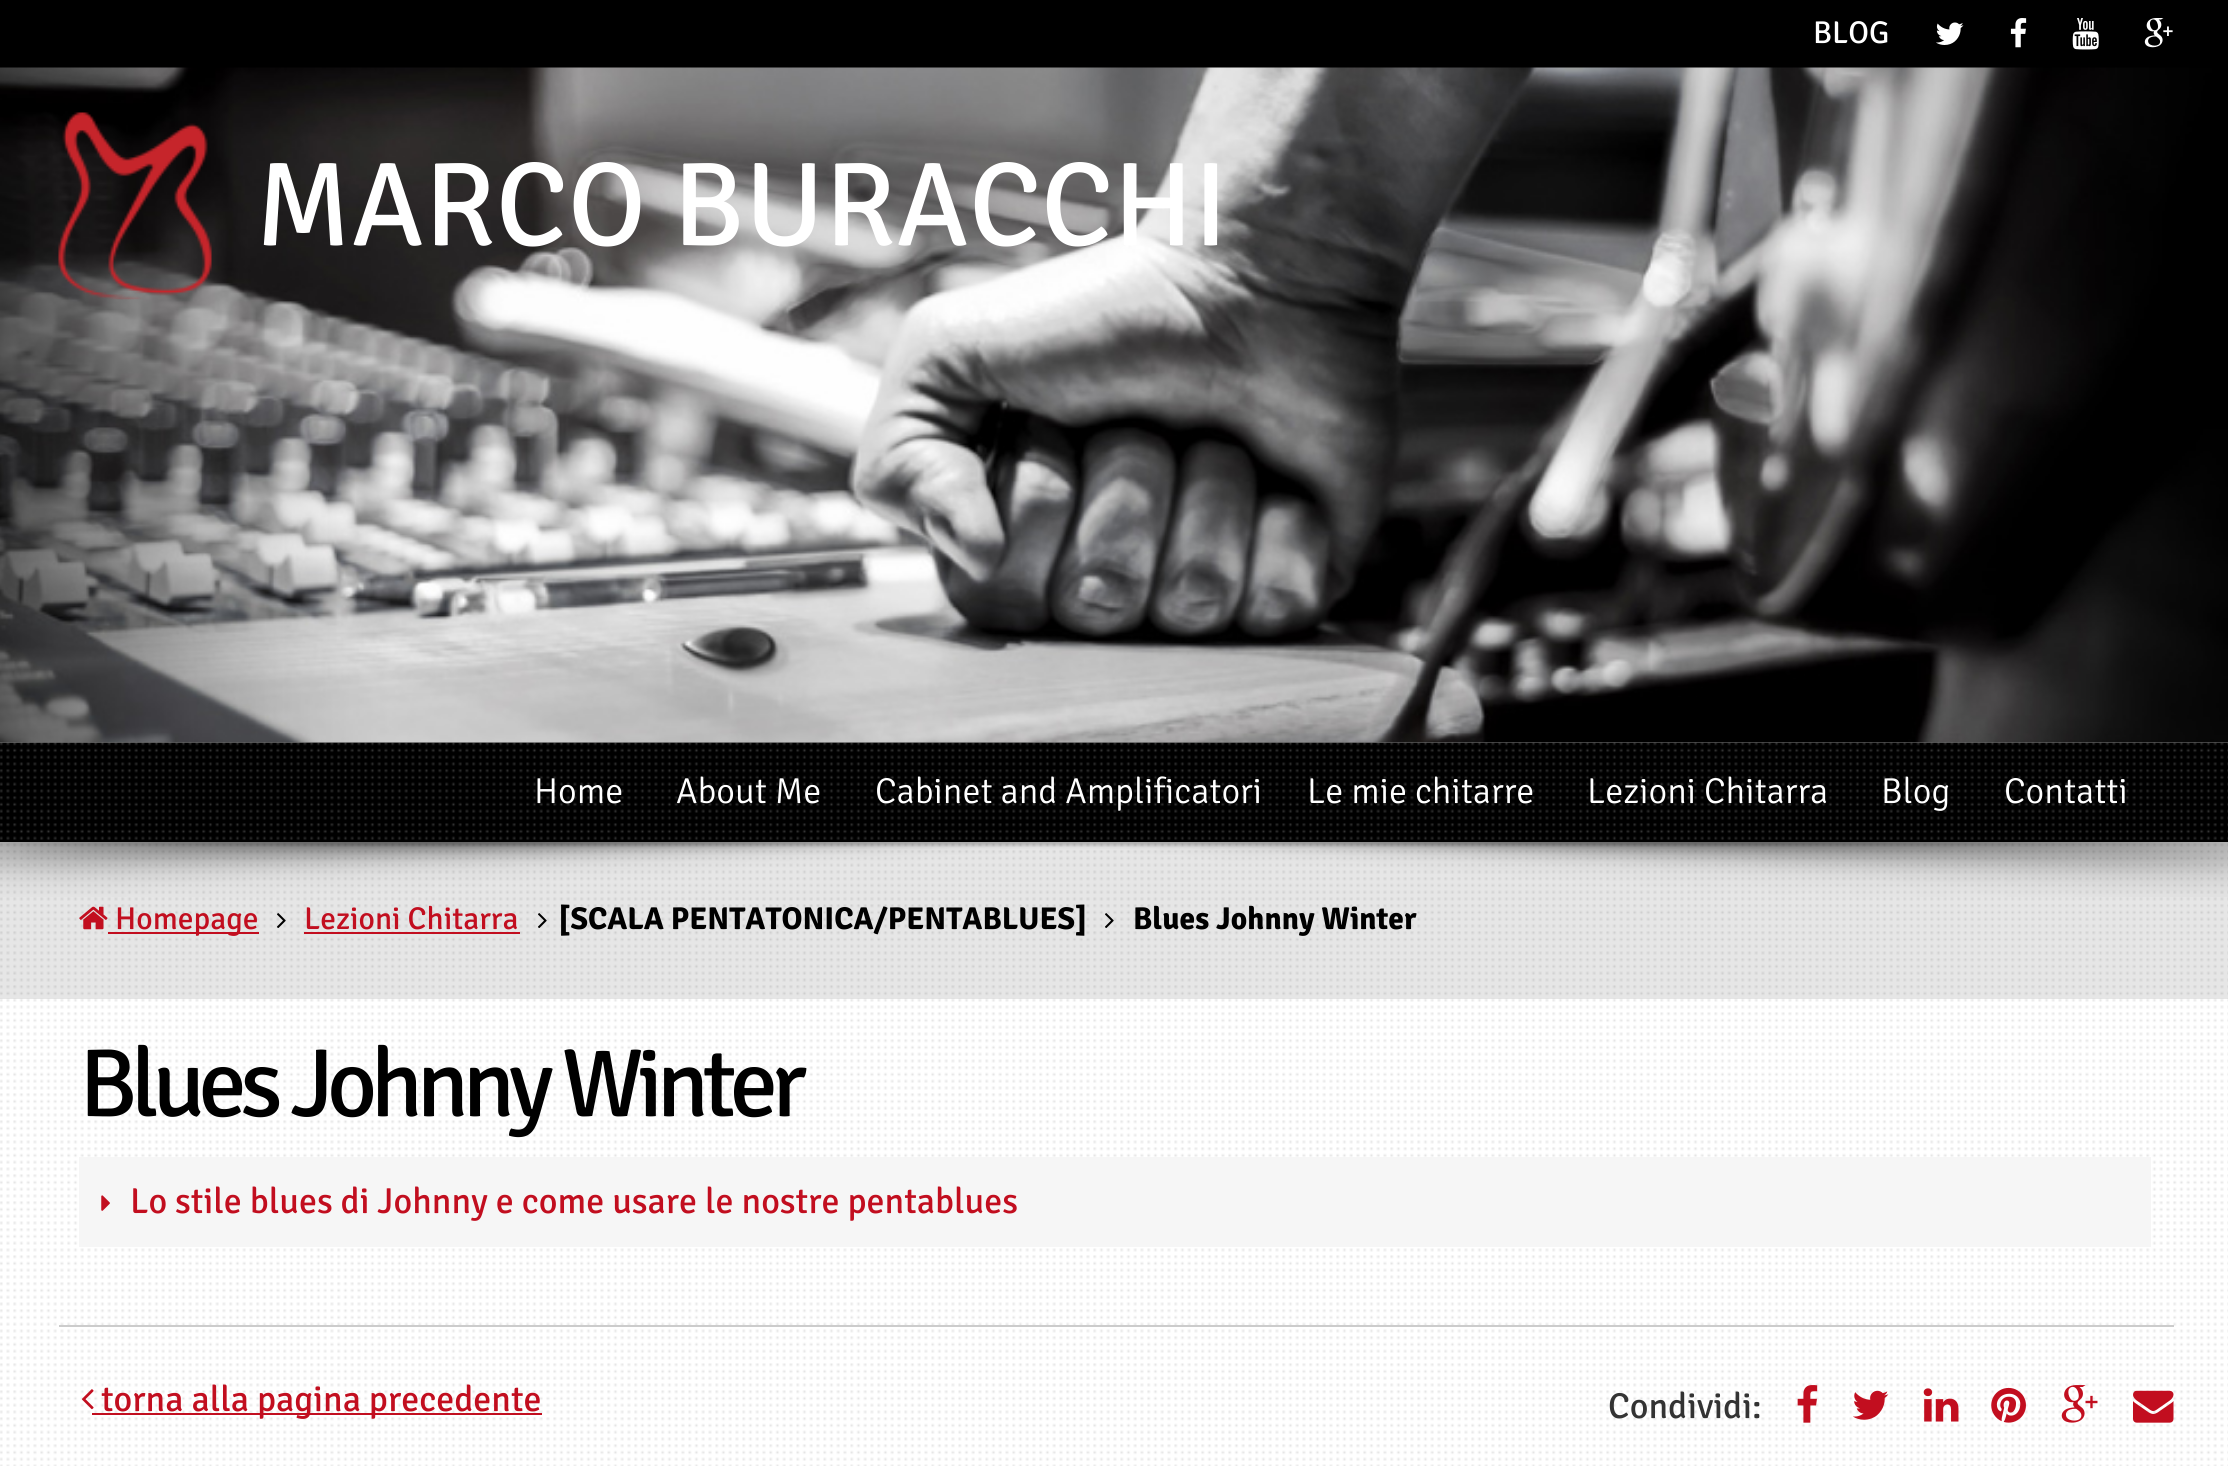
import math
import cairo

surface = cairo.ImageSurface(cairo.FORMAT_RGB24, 2228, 1466)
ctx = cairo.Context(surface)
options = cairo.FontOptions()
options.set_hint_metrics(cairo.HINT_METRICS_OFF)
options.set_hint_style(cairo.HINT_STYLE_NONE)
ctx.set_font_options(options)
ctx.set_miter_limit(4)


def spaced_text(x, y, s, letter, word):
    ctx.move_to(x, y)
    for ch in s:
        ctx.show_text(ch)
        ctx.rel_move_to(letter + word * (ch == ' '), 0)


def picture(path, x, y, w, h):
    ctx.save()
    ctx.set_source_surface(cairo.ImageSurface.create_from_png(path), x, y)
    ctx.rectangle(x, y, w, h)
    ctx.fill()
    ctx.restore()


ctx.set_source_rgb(1, 1, 1)
ctx.paint()
picture("img1.png", 0, 742, 2228, 724)
ctx.set_source_rgb(0, 0, 0)
ctx.rectangle(0, 0, 2228, 68)
ctx.fill()
ctx.select_font_face("Signika")
ctx.set_font_size(31.5)
ctx.set_source_rgb(1, 1, 1)
ctx.move_to(1813, 43)
ctx.show_text("BLOG")
picture("img2.png", 1936, 22, 28, 23)
picture("img3.png", 2010, 18, 17, 30)
picture("img4.png", 2072, 18, 27, 32)
picture("img5.png", 2144, 18, 29, 30)
picture("img6.png", 0, 67, 2228, 676)
picture("img7.png", 58, 112, 154, 188)
ctx.set_font_size(119.25)
ctx.move_to(255, 245)
ctx.show_text("MARCO BURACCHI")
ctx.set_source_rgb(0, 0, 0)
ctx.rectangle(0, 840, 2228, 2)
ctx.fill()
picture("img8.png", 0, 742, 2228, 98)
ctx.select_font_face("Signika Light")
ctx.set_font_size(36)
ctx.set_source_rgb(1, 1, 1)
ctx.move_to(534, 803)
ctx.show_text("Home")
ctx.move_to(676, 803)
ctx.show_text("About Me")
ctx.move_to(875, 803)
ctx.show_text("Cabinet and Amplificatori")
ctx.move_to(1307, 803)
ctx.show_text("Le mie chitarre")
ctx.move_to(1587, 803)
ctx.show_text("Lezioni Chitarra")
ctx.move_to(1881, 803)
ctx.show_text("Blog")
ctx.move_to(2004, 803)
ctx.show_text("Contatti")
picture("img9.png", 0, 842, 2228, 55)
ctx.set_source_rgba(0, 0, 0, 0.1)
ctx.rectangle(0, 842, 2228, 157)
ctx.fill()
picture("img10.png", 79, 906, 29, 24)
ctx.set_source_rgb(0.761, 0.055, 0.122)
ctx.rectangle(108, 932, 151, 2)
ctx.fill()
ctx.select_font_face("Signika")
ctx.set_font_size(31.5)
ctx.move_to(115, 929)
ctx.show_text("Homepage")
picture("img11.png", 277, 913, 9, 15)
ctx.move_to(304, 929)
ctx.show_text("Lezioni Chitarra")
ctx.rectangle(304, 932, 216, 2)
ctx.fill()
picture("img12.png", 538, 913, 9, 15)
ctx.select_font_face("Signika", cairo.FONT_SLANT_NORMAL, cairo.FONT_WEIGHT_BOLD)
ctx.set_source_rgb(0, 0, 0)
ctx.move_to(558, 929)
ctx.show_text("[SCALA PENTATONICA/PENTABLUES]")
picture("img12.png", 1105, 913, 9, 15)
ctx.move_to(1133, 929)
ctx.show_text("Blues Johnny Winter")
ctx.select_font_face("Signika")
ctx.set_font_size(96.75)
spaced_text(79, 1116, "Blues Johnny Winter", -6.75, 0)
ctx.set_source_rgb(0.961, 0.961, 0.961)
ctx.rectangle(79, 1157, 2072, 90)
ctx.fill()
picture("img13.png", 101, 1195, 9, 16)
ctx.set_font_size(36)
ctx.set_source_rgb(0.761, 0.055, 0.122)
ctx.move_to(130, 1213)
ctx.show_text("Lo stile blues di Johnny e come usare le nostre pentablues")
ctx.set_source_rgb(0.8, 0.8, 0.8)
ctx.rectangle(59, 1325, 2115, 2)
ctx.fill()
picture("img14.png", 81, 1389, 13, 21)
ctx.set_source_rgb(0.761, 0.055, 0.122)
ctx.rectangle(92, 1413, 450, 2)
ctx.fill()
ctx.move_to(101, 1411)
ctx.show_text("torna alla pagina precedente")
ctx.set_source_rgb(0.2, 0.2, 0.2)
ctx.move_to(1608, 1418)
ctx.show_text("Condividi:")
picture("img15.png", 1797, 1385, 21, 38)
picture("img16.png", 1853, 1390, 36, 30)
picture("img17.png", 1923, 1388, 36, 34)
picture("img18.png", 1991, 1387, 35, 36)
picture("img19.png", 2061, 1385, 37, 38)
picture("img20.png", 2133, 1390, 41, 33)
surface.write_to_png("page.png")
